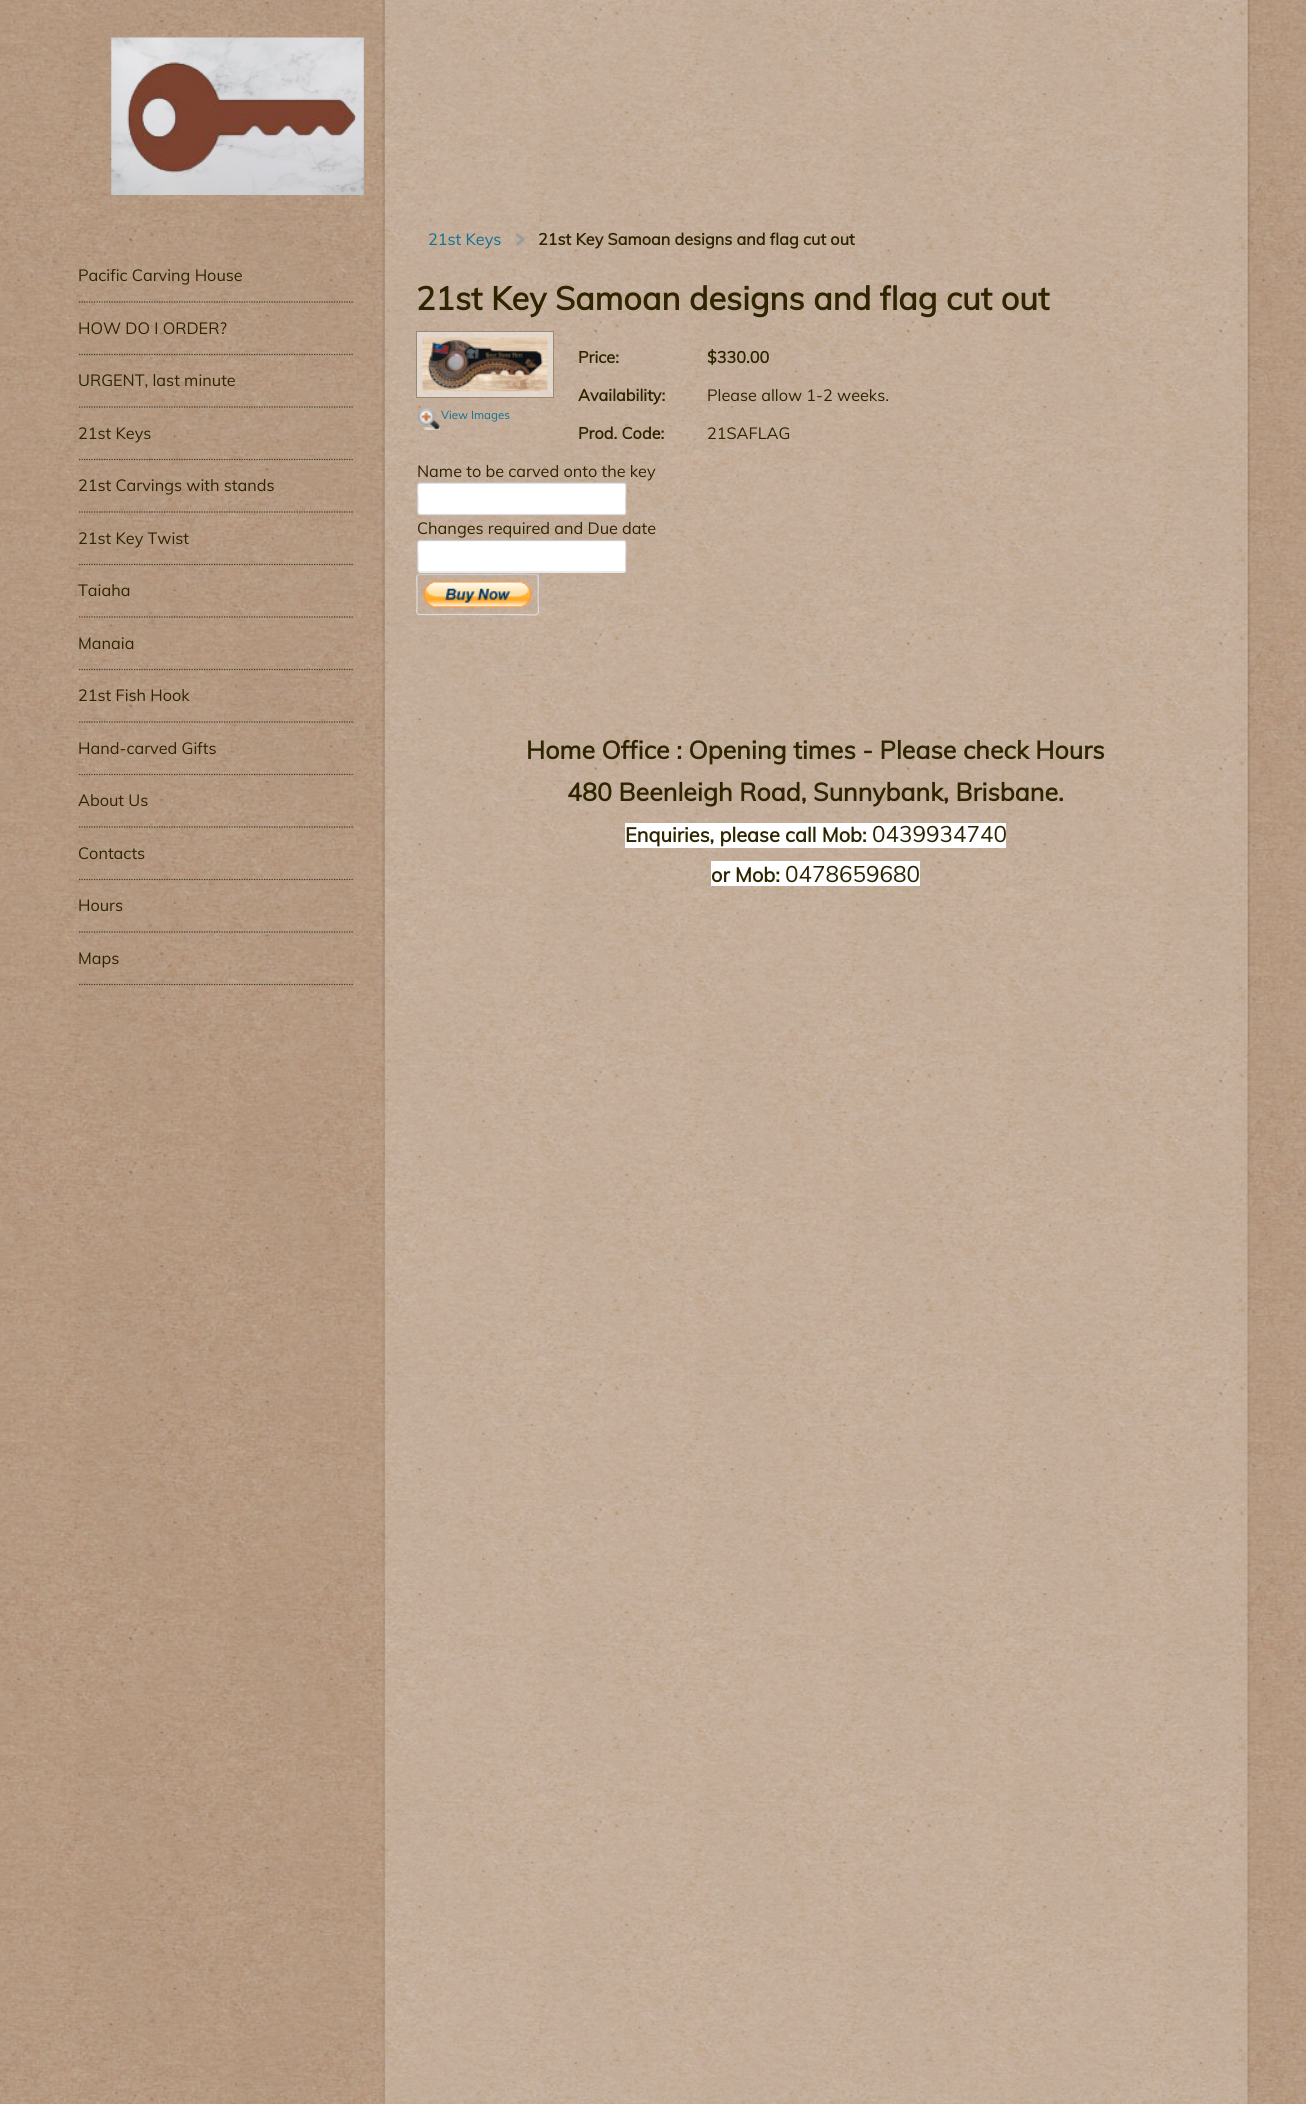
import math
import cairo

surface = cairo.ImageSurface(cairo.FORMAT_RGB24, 1306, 2104)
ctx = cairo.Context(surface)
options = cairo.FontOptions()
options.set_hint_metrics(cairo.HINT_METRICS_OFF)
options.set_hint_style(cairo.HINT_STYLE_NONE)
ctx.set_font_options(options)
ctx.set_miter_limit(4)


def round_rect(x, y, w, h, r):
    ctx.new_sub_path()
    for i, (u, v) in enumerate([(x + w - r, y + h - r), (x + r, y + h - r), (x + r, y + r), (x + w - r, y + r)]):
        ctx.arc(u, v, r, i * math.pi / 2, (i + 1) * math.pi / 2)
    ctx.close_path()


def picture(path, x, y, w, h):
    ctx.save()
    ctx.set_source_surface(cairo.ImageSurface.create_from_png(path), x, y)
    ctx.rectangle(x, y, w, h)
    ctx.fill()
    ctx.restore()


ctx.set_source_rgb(1, 1, 1)
ctx.paint()
picture("img1.png", 0, 0, 1306, 2104)
picture("img2.png", 382, 0, 868, 2104)
picture("img3.png", 111, 37, 253, 158)
ctx.new_path()
ctx.move_to(79, 302)
ctx.line_to(354, 302)
ctx.set_source_rgb(0.259, 0.235, 0.153)
ctx.set_line_width(1.2)
ctx.set_dash([1.25, 1.25])
ctx.stroke()
ctx.select_font_face("Muli")
ctx.set_font_size(16.25)
ctx.set_source_rgb(0.18, 0.141, 0)
ctx.move_to(78, 281)
ctx.show_text("Pacific Carving House")
ctx.new_path()
ctx.move_to(79, 354.5)
ctx.line_to(354, 354.5)
ctx.set_source_rgb(0.259, 0.235, 0.153)
ctx.stroke()
ctx.set_source_rgb(0.18, 0.141, 0)
ctx.move_to(78, 334)
ctx.show_text("HOW DO I ORDER?")
ctx.new_path()
ctx.move_to(79, 407)
ctx.line_to(354, 407)
ctx.set_source_rgb(0.259, 0.235, 0.153)
ctx.stroke()
ctx.set_source_rgb(0.18, 0.141, 0)
ctx.move_to(78, 386)
ctx.show_text("URGENT, last minute")
ctx.new_path()
ctx.move_to(79, 459.5)
ctx.line_to(354, 459.5)
ctx.set_source_rgb(0.259, 0.235, 0.153)
ctx.stroke()
ctx.set_source_rgb(0.18, 0.141, 0)
ctx.move_to(78, 439)
ctx.show_text("21st Keys")
ctx.new_path()
ctx.move_to(79, 512)
ctx.line_to(354, 512)
ctx.set_source_rgb(0.259, 0.235, 0.153)
ctx.stroke()
ctx.set_source_rgb(0.18, 0.141, 0)
ctx.move_to(78, 491)
ctx.show_text("21st Carvings with stands")
ctx.new_path()
ctx.move_to(79, 564.5)
ctx.line_to(354, 564.5)
ctx.set_source_rgb(0.259, 0.235, 0.153)
ctx.stroke()
ctx.set_source_rgb(0.18, 0.141, 0)
ctx.move_to(78, 544)
ctx.show_text("21st Key Twist")
ctx.new_path()
ctx.move_to(79, 617)
ctx.line_to(354, 617)
ctx.set_source_rgb(0.259, 0.235, 0.153)
ctx.stroke()
ctx.set_source_rgb(0.18, 0.141, 0)
ctx.move_to(78, 596)
ctx.show_text("Taiaha")
ctx.new_path()
ctx.move_to(79, 669.5)
ctx.line_to(354, 669.5)
ctx.set_source_rgb(0.259, 0.235, 0.153)
ctx.stroke()
ctx.set_source_rgb(0.18, 0.141, 0)
ctx.move_to(78, 649)
ctx.show_text("Manaia")
ctx.new_path()
ctx.move_to(79, 722)
ctx.line_to(354, 722)
ctx.set_source_rgb(0.259, 0.235, 0.153)
ctx.stroke()
ctx.set_source_rgb(0.18, 0.141, 0)
ctx.move_to(78, 701)
ctx.show_text("21st Fish Hook")
ctx.new_path()
ctx.move_to(79, 774.5)
ctx.line_to(354, 774.5)
ctx.set_source_rgb(0.259, 0.235, 0.153)
ctx.stroke()
ctx.set_source_rgb(0.18, 0.141, 0)
ctx.move_to(78, 754)
ctx.show_text("Hand-carved Gifts")
ctx.new_path()
ctx.move_to(79, 827)
ctx.line_to(354, 827)
ctx.set_source_rgb(0.259, 0.235, 0.153)
ctx.stroke()
ctx.set_source_rgb(0.18, 0.141, 0)
ctx.move_to(78, 806)
ctx.show_text("About Us")
ctx.new_path()
ctx.move_to(79, 879.5)
ctx.line_to(354, 879.5)
ctx.set_source_rgb(0.259, 0.235, 0.153)
ctx.stroke()
ctx.set_source_rgb(0.18, 0.141, 0)
ctx.move_to(78, 859)
ctx.show_text("Contacts")
ctx.new_path()
ctx.move_to(79, 932)
ctx.line_to(354, 932)
ctx.set_source_rgb(0.259, 0.235, 0.153)
ctx.stroke()
ctx.set_source_rgb(0.18, 0.141, 0)
ctx.move_to(78, 911)
ctx.show_text("Hours")
ctx.new_path()
ctx.move_to(79, 984.5)
ctx.line_to(354, 984.5)
ctx.set_source_rgb(0.259, 0.235, 0.153)
ctx.stroke()
ctx.set_source_rgb(0.18, 0.141, 0)
ctx.move_to(78, 964)
ctx.show_text("Maps")
picture("img4.png", 382, 0, 868, 1048)
ctx.set_source_rgb(0.067, 0.435, 0.557)
ctx.move_to(428, 245)
ctx.show_text("21st Keys")
picture("img5.png", 515, 232, 11, 14)
ctx.select_font_face("Muli", cairo.FONT_SLANT_NORMAL, cairo.FONT_WEIGHT_BOLD)
ctx.set_source_rgb(0.18, 0.141, 0)
ctx.move_to(538, 245)
ctx.show_text("21st Key Samoan designs and flag cut out")
ctx.set_font_size(32.5)
ctx.move_to(416, 310)
ctx.show_text("21st Key Samoan designs and flag cut out")
ctx.set_source_rgba(1, 1, 1, 0.5)
ctx.rectangle(416.5, 331.5, 137, 66)
ctx.fill_preserve()
ctx.set_source_rgb(0.616, 0.529, 0.427)
ctx.set_line_width(1)
ctx.set_dash([])
ctx.stroke()
picture("img6.png", 422, 337, 126, 55)
picture("img7.png", 417, 408, 23, 22)
ctx.select_font_face("Muli")
ctx.set_font_size(11.5)
ctx.set_source_rgb(0.067, 0.435, 0.557)
ctx.move_to(441, 419)
ctx.show_text("View Images")
ctx.select_font_face("Muli", cairo.FONT_SLANT_NORMAL, cairo.FONT_WEIGHT_BOLD)
ctx.set_font_size(16.25)
ctx.set_source_rgb(0.18, 0.141, 0)
ctx.move_to(578, 363)
ctx.show_text("Price:")
ctx.move_to(707, 363)
ctx.show_text("$330.00")
ctx.move_to(578, 401)
ctx.show_text("Availability:")
ctx.select_font_face("Muli")
ctx.move_to(707, 401)
ctx.show_text("Please allow 1-2 weeks.")
ctx.select_font_face("Muli", cairo.FONT_SLANT_NORMAL, cairo.FONT_WEIGHT_BOLD)
ctx.move_to(578, 439)
ctx.show_text("Prod. Code:")
ctx.select_font_face("Muli")
ctx.move_to(707, 439)
ctx.show_text("21SAFLAG")
ctx.move_to(417, 477)
ctx.show_text("Name to be carved onto the key")
ctx.set_source_rgb(1, 1, 1)
round_rect(418, 483, 208, 32, 2.5)
ctx.fill()
ctx.new_path()
ctx.move_to(418.5, 483.5)
ctx.line_to(420, 483)
ctx.line_to(624, 483)
ctx.line_to(625, 483.5)
ctx.set_source_rgb(0.8, 0.8, 0.8)
ctx.set_line_width(1.2)
ctx.stroke()
ctx.new_path()
ctx.move_to(625, 483.5)
ctx.curve_to(626.5, 485, 625.5, 496.5, 625.5, 499)
ctx.line_to(625.5, 508)
ctx.curve_to(625.5, 509, 626.5, 514.5, 624, 514.5)
ctx.line_to(420, 514.5)
ctx.curve_to(417, 514.5, 418, 509, 418, 508)
ctx.line_to(418, 499)
ctx.curve_to(418, 496.5, 417, 485, 418.5, 483.5)
ctx.set_source_rgb(0.863, 0.863, 0.863)
ctx.stroke()
ctx.set_source_rgb(0.18, 0.141, 0)
ctx.move_to(417, 534)
ctx.show_text("Changes required and Due date")
ctx.set_source_rgb(1, 1, 1)
round_rect(418, 540, 208, 33, 2.5)
ctx.fill()
ctx.new_path()
ctx.move_to(418.5, 541)
ctx.line_to(420, 540.5)
ctx.line_to(624, 540.5)
ctx.line_to(625, 541)
ctx.set_source_rgb(0.8, 0.8, 0.8)
ctx.stroke()
ctx.new_path()
ctx.move_to(625, 541)
ctx.curve_to(626.5, 542.5, 625.5, 554, 625.5, 556)
ctx.line_to(625.5, 565.5)
ctx.curve_to(625.5, 566.5, 626.5, 572, 624, 572)
ctx.line_to(420, 572)
ctx.curve_to(417, 572, 418, 566.5, 418, 565.5)
ctx.line_to(418, 556)
ctx.curve_to(418, 554, 417, 542.5, 418.5, 541)
ctx.set_source_rgb(0.863, 0.863, 0.863)
ctx.stroke()
ctx.new_path()
ctx.move_to(417.5, 575)
ctx.line_to(419, 574.5)
ctx.line_to(497, 574.5)
ctx.curve_to(500, 574.5, 536, 573.5, 537.5, 575)
ctx.set_source_rgb(0.8, 0.8, 0.8)
ctx.stroke()
ctx.new_path()
ctx.move_to(537.5, 575)
ctx.curve_to(539, 576.5, 538, 591.5, 538, 594.5)
ctx.curve_to(538, 620, 543.5, 614.5, 516.5, 614.5)
ctx.line_to(419, 614.5)
ctx.curve_to(415.5, 614.5, 417, 607, 417, 606.5)
ctx.line_to(417, 588.5)
ctx.curve_to(417, 586, 416, 576.5, 417.5, 575)
ctx.set_source_rgb(0.863, 0.863, 0.863)
ctx.stroke()
picture("img8.png", 423, 581, 109, 27)
ctx.select_font_face("Muli", cairo.FONT_SLANT_NORMAL, cairo.FONT_WEIGHT_BOLD)
ctx.set_font_size(25)
ctx.set_source_rgb(0.18, 0.141, 0)
ctx.move_to(526, 759)
ctx.show_text("Home Office : Opening times - Please check Hours")
ctx.move_to(567, 801)
ctx.show_text("480 Beenleigh Road, Sunnybank, Brisbane.")
ctx.set_source_rgb(1, 1, 1)
ctx.rectangle(625, 823, 381, 25)
ctx.fill()
ctx.set_font_size(20)
ctx.set_source_rgb(0.18, 0.141, 0)
ctx.move_to(625, 842)
ctx.show_text("Enquiries, please call Mob:")
ctx.select_font_face("Muli")
ctx.set_font_size(22.5)
ctx.move_to(872, 842)
ctx.show_text("0439934740")
ctx.set_source_rgb(1, 1, 1)
ctx.rectangle(711, 861, 209, 25)
ctx.fill()
ctx.select_font_face("Muli", cairo.FONT_SLANT_NORMAL, cairo.FONT_WEIGHT_BOLD)
ctx.set_font_size(20)
ctx.set_source_rgb(0.18, 0.141, 0)
ctx.move_to(711, 882)
ctx.show_text("or Mob:")
ctx.select_font_face("Muli")
ctx.set_font_size(22.5)
ctx.move_to(785, 882)
ctx.show_text("0478659680")
surface.write_to_png("page.png")
